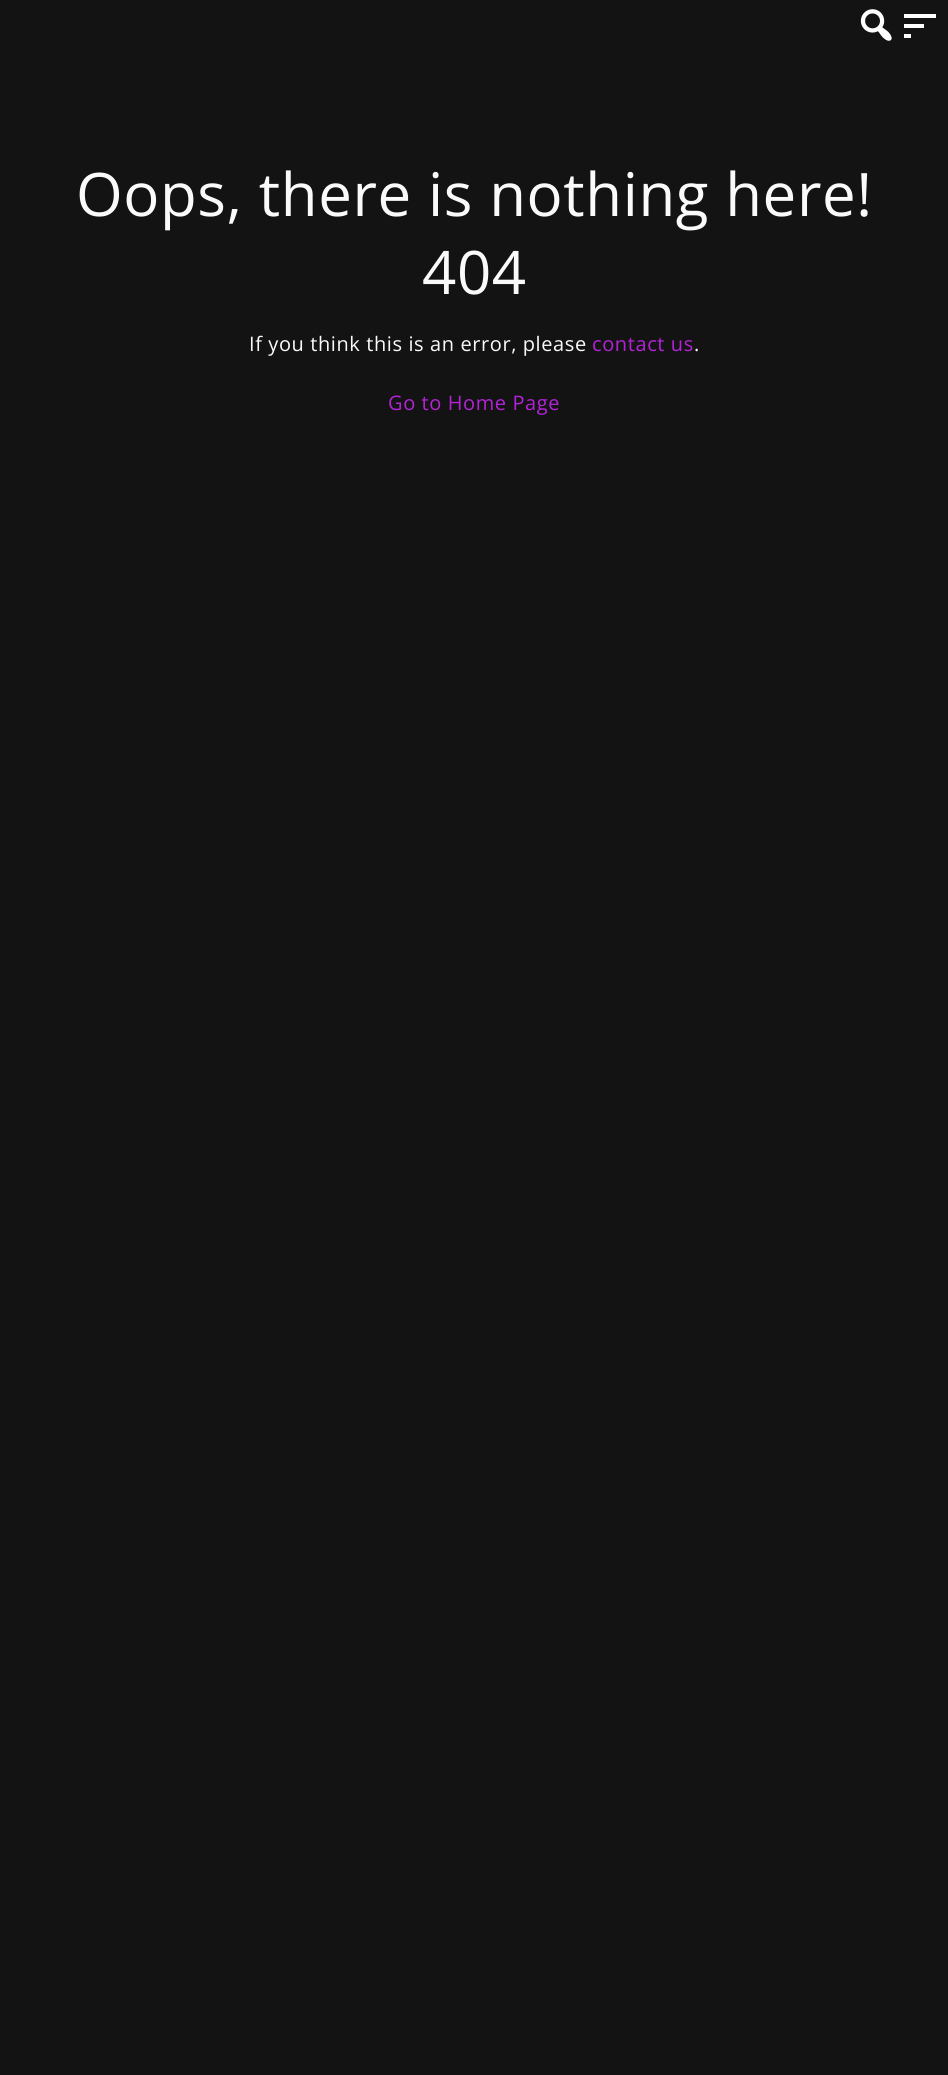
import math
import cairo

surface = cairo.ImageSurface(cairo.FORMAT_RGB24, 948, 2075)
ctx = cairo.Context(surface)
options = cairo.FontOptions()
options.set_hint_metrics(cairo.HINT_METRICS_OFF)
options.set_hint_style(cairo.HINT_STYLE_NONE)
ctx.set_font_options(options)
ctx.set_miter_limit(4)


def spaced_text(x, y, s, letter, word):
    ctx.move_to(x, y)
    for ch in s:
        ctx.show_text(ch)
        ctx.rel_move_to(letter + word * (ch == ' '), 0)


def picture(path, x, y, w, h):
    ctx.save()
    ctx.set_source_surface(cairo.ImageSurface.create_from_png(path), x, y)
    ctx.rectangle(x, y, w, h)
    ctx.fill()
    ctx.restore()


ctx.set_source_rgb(0.078, 0.078, 0.078)
ctx.paint()
picture("img1.png", 860, 9, 32, 32)
ctx.set_source_rgb(1, 1, 1)
ctx.rectangle(904, 24, 20, 4)
ctx.fill()
ctx.rectangle(904, 14, 32, 4)
ctx.fill()
ctx.rectangle(904, 34, 7, 4)
ctx.fill()
ctx.select_font_face("Open Sans")
ctx.set_font_size(60)
ctx.set_source_rgb(0.98, 0.98, 0.98)
spaced_text(76, 216, "Oops, there is nothing here!", 0.6, 0)
spaced_text(422, 294, "404", 0.6, 0)
ctx.set_font_size(20)
spaced_text(249, 351, "If you think this is an error, please", 0.6, 0)
ctx.set_source_rgb(0.706, 0.133, 0.847)
spaced_text(592, 351, "contact us", 0.6, 0)
ctx.set_source_rgb(0.98, 0.98, 0.98)
spaced_text(694, 351, ".", 0.6, 0)
ctx.set_source_rgb(0.706, 0.133, 0.847)
spaced_text(388, 410, "Go to Home Page", 0.6, 0)
surface.write_to_png("page.png")
